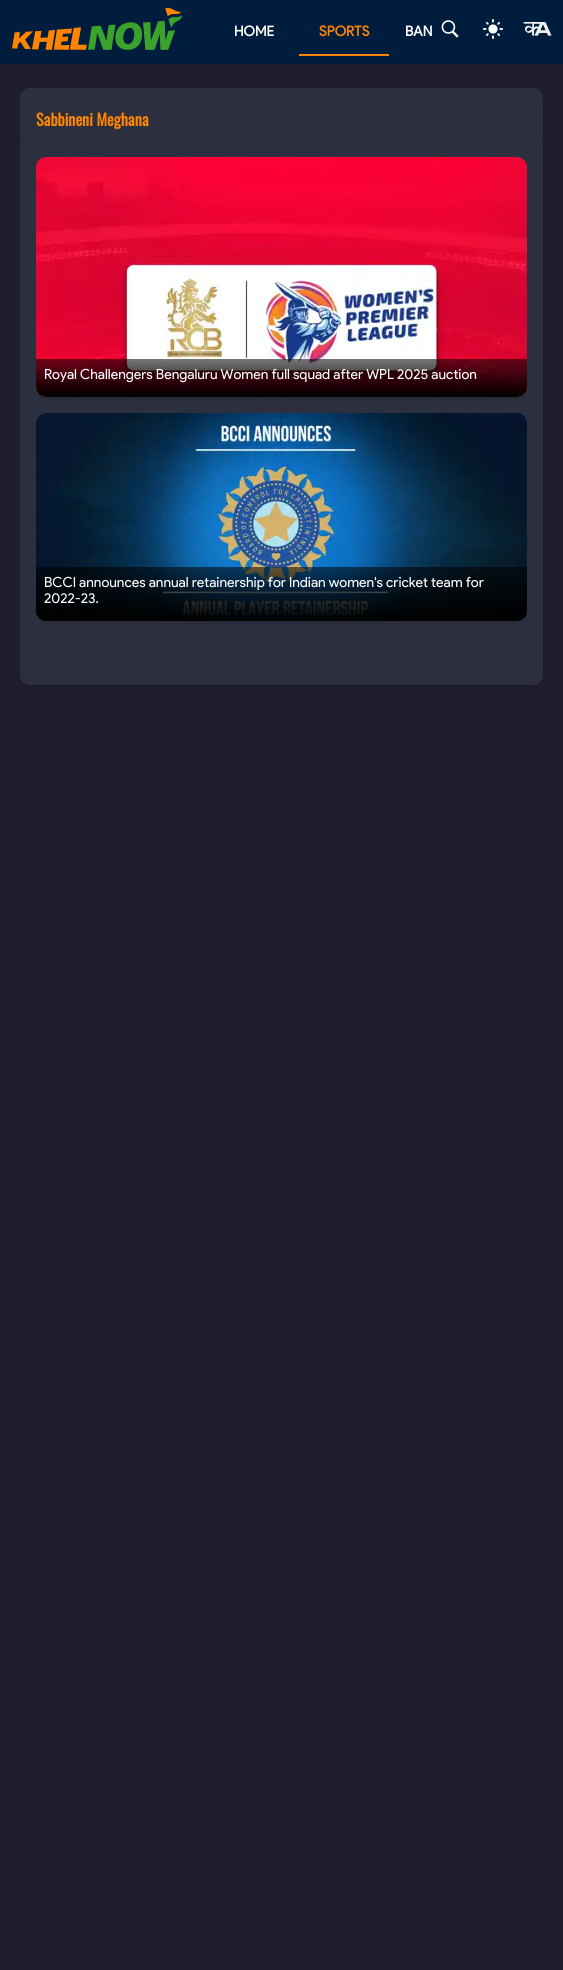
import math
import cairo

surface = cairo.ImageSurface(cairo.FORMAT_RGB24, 563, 1970)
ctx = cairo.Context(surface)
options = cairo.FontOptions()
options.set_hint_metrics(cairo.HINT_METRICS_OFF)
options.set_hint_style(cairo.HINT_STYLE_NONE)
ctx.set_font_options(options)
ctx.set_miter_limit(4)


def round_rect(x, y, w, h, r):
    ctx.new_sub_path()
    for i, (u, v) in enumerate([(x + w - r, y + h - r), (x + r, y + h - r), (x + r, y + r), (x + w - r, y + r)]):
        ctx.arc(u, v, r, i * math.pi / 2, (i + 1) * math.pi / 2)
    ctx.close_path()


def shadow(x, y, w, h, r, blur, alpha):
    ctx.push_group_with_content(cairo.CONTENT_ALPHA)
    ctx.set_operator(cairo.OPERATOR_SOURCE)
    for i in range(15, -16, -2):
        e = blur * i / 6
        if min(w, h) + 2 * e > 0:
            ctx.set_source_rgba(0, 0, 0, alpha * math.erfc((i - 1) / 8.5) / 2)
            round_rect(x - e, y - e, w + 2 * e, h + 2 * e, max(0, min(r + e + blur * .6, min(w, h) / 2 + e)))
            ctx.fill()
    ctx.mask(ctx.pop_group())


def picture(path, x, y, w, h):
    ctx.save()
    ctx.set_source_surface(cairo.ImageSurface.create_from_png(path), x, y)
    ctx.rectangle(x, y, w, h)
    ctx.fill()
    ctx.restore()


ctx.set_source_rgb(0.122, 0.114, 0.169)
ctx.paint()
ctx.set_source_rgb(0, 0.114, 0.239)
ctx.rectangle(0, 0, 563, 64)
ctx.fill()
picture("img1.png", 12, 7, 170, 43)
ctx.select_font_face("Product Sans", cairo.FONT_SLANT_NORMAL, cairo.FONT_WEIGHT_BOLD)
ctx.set_font_size(14)
ctx.set_source_rgb(1, 1, 1)
ctx.move_to(234, 36)
ctx.show_text("HOME")
ctx.set_source_rgb(1, 0.522, 0)
ctx.move_to(319, 36)
ctx.show_text("SPORTS")
ctx.rectangle(299, 54, 90, 2)
ctx.fill()
ctx.set_source_rgb(1, 1, 1)
ctx.move_to(405, 36)
ctx.show_text("BAN")
picture("img2.png", 441, 20, 18, 18)
picture("img3.png", 483, 19, 20, 20)
picture("img4.png", 523, 21, 29, 16)
ctx.set_source_rgb(0.173, 0.184, 0.243)
round_rect(20, 88, 523, 597, 10)
ctx.fill()
ctx.select_font_face("Oswald", cairo.FONT_SLANT_NORMAL, cairo.FONT_WEIGHT_BOLD)
ctx.set_font_size(16)
ctx.set_source_rgb(1, 0.522, 0)
ctx.move_to(36, 126)
ctx.show_text("Sabbineni Meghana")
ctx.set_source_rgb(0.153, 0.161, 0.216)
ctx.rectangle(20, 140, 523, 1)
ctx.fill()
ctx.set_source_rgb(0, 0, 0)
shadow(38, 162, 487, 236, 8, 1.5, 0.2)
ctx.set_source_rgb(0.173, 0.184, 0.243)
round_rect(36, 157, 491, 240, 10)
ctx.fill()
picture("img5.png", 36, 157, 491, 240)
picture("img6.png", 36, 359, 491, 38)
ctx.select_font_face("Product Sans")
ctx.set_font_size(14)
ctx.set_source_rgb(1, 1, 1)
ctx.move_to(44, 379)
ctx.show_text("Royal Challengers Bengaluru Women full squad after WPL 2025 auction")
ctx.set_source_rgb(0, 0, 0)
shadow(38, 418, 487, 204, 8, 1.5, 0.2)
ctx.set_source_rgb(0.173, 0.184, 0.243)
round_rect(36, 413, 491, 208, 10)
ctx.fill()
picture("img7.png", 36, 413, 491, 208)
picture("img8.png", 36, 567, 491, 54)
ctx.set_source_rgb(1, 1, 1)
ctx.move_to(44, 587)
ctx.show_text("BCCI announces annual retainership for Indian women's cricket team for")
ctx.move_to(44, 603)
ctx.show_text("2022-23.")
surface.write_to_png("page.png")
